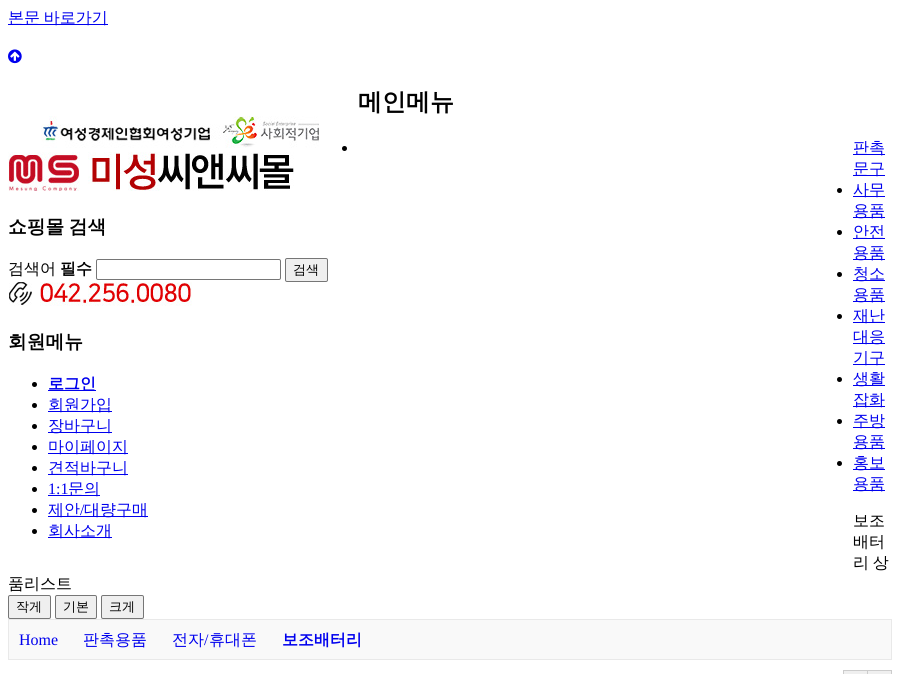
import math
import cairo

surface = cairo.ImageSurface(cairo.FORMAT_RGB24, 900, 674)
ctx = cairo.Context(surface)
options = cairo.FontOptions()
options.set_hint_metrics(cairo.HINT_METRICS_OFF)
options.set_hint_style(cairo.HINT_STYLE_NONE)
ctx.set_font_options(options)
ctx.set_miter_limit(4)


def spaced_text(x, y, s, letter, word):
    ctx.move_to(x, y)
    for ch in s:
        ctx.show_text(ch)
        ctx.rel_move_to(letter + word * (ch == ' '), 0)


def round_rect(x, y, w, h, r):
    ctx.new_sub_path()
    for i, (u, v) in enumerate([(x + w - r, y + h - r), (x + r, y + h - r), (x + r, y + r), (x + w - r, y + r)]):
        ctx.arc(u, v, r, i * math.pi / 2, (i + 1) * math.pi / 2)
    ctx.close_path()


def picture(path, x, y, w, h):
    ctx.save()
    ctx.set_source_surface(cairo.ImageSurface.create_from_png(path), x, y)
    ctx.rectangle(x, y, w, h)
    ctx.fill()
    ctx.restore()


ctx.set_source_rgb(1, 1, 1)
ctx.paint()
ctx.set_source_rgb(0, 0, 0.933)
ctx.rectangle(8, 24, 100, 1)
ctx.fill()
ctx.select_font_face("WenQuanYi Zen Hei Medium")
ctx.set_font_size(16)
spaced_text(8, 23, "본문 바로가기", 0, -1)
picture("img1.png", 8, 49, 14, 15)
picture("img2.png", 41, 116, 278, 32)
picture("img3.png", 8, 152, 286, 39)
ctx.select_font_face("WenQuanYi Zen Hei", cairo.FONT_SLANT_NORMAL, cairo.FONT_WEIGHT_BOLD)
ctx.set_font_size(18.75)
ctx.set_source_rgb(0, 0, 0)
spaced_text(8, 233, "쇼핑몰 검색", 0, -1)
ctx.select_font_face("WenQuanYi Zen Hei Medium")
ctx.set_font_size(16)
ctx.move_to(8, 274)
ctx.show_text("검색어")
ctx.select_font_face("WenQuanYi Zen Hei", cairo.FONT_SLANT_NORMAL, cairo.FONT_WEIGHT_BOLD)
ctx.move_to(60, 274)
ctx.show_text("필수")
round_rect(96.5, 259.5, 184, 20, 1.5)
ctx.set_source_rgb(0.463, 0.463, 0.463)
ctx.set_line_width(1)
ctx.stroke()
ctx.set_source_rgb(0.937, 0.937, 0.937)
round_rect(285.5, 258.5, 42, 23, 1.5)
ctx.fill_preserve()
ctx.set_source_rgb(0.463, 0.463, 0.463)
ctx.stroke()
ctx.select_font_face("WenQuanYi Zen Hei Medium")
ctx.set_font_size(13)
ctx.set_source_rgb(0, 0, 0)
ctx.move_to(293, 274)
ctx.show_text("검색")
picture("img4.png", 9, 282, 183, 24)
ctx.select_font_face("WenQuanYi Zen Hei", cairo.FONT_SLANT_NORMAL, cairo.FONT_WEIGHT_BOLD)
ctx.set_font_size(18.75)
ctx.move_to(8, 348)
ctx.show_text("회원메뉴")
ctx.new_path()
ctx.arc(34.5, 384.5, 2.5, 0, 2 * math.pi)
ctx.fill()
ctx.set_source_rgb(0, 0, 0.933)
ctx.rectangle(48, 390, 48, 1)
ctx.fill()
ctx.set_font_size(16)
ctx.move_to(48, 389)
ctx.show_text("로그인")
ctx.set_source_rgb(0, 0, 0)
ctx.new_path()
ctx.arc(34.5, 405.5, 2.5, 0, 2 * math.pi)
ctx.fill()
ctx.set_source_rgb(0, 0, 0.933)
ctx.rectangle(48, 411, 64, 1)
ctx.fill()
ctx.select_font_face("WenQuanYi Zen Hei Medium")
ctx.move_to(48, 410)
ctx.show_text("회원가입")
ctx.set_source_rgb(0, 0, 0)
ctx.new_path()
ctx.arc(34.5, 426.5, 2.5, 0, 2 * math.pi)
ctx.fill()
ctx.set_source_rgb(0, 0, 0.933)
ctx.rectangle(48, 432, 64, 1)
ctx.fill()
ctx.move_to(48, 431)
ctx.show_text("장바구니")
ctx.set_source_rgb(0, 0, 0)
ctx.new_path()
ctx.arc(34.5, 447.5, 2.5, 0, 2 * math.pi)
ctx.fill()
ctx.set_source_rgb(0, 0, 0.933)
ctx.rectangle(48, 453, 80, 1)
ctx.fill()
ctx.move_to(48, 452)
ctx.show_text("마이페이지")
ctx.set_source_rgb(0, 0, 0)
ctx.new_path()
ctx.arc(34.5, 468.5, 2.5, 0, 2 * math.pi)
ctx.fill()
ctx.set_source_rgb(0, 0, 0.933)
ctx.rectangle(48, 474, 80, 1)
ctx.fill()
ctx.move_to(48, 473)
ctx.show_text("견적바구니")
ctx.set_source_rgb(0, 0, 0)
ctx.new_path()
ctx.arc(34.5, 489.5, 2.5, 0, 2 * math.pi)
ctx.fill()
ctx.select_font_face("Liberation Serif")
ctx.set_source_rgb(0, 0, 0.933)
ctx.move_to(48, 494)
ctx.show_text("1:1")
ctx.rectangle(48, 495, 52, 1)
ctx.fill()
ctx.select_font_face("WenQuanYi Zen Hei Medium")
ctx.move_to(68, 494)
ctx.show_text("문의")
ctx.set_source_rgb(0, 0, 0)
ctx.new_path()
ctx.arc(34.5, 510.5, 2.5, 0, 2 * math.pi)
ctx.fill()
ctx.set_source_rgb(0, 0, 0.933)
ctx.rectangle(48, 516, 100, 1)
ctx.fill()
ctx.move_to(48, 515)
ctx.show_text("제안")
ctx.select_font_face("Liberation Serif")
ctx.move_to(80, 515)
ctx.show_text("/")
ctx.select_font_face("WenQuanYi Zen Hei Medium")
ctx.move_to(84, 515)
ctx.show_text("대량구매")
ctx.set_source_rgb(0, 0, 0)
ctx.new_path()
ctx.arc(34.5, 531.5, 2.5, 0, 2 * math.pi)
ctx.fill()
ctx.set_source_rgb(0, 0, 0.933)
ctx.rectangle(48, 537, 64, 1)
ctx.fill()
ctx.move_to(48, 536)
ctx.show_text("회사소개")
ctx.select_font_face("WenQuanYi Zen Hei", cairo.FONT_SLANT_NORMAL, cairo.FONT_WEIGHT_BOLD)
ctx.set_font_size(24)
ctx.set_source_rgb(0, 0, 0)
ctx.move_to(358, 110)
ctx.show_text("메인메뉴")
ctx.new_path()
ctx.arc(344.5, 148.5, 2.5, 0, 2 * math.pi)
ctx.fill()
ctx.set_source_rgb(0, 0, 0.933)
ctx.rectangle(853, 154, 32, 1)
ctx.fill()
ctx.select_font_face("WenQuanYi Zen Hei Medium")
ctx.set_font_size(16)
ctx.move_to(853, 153)
ctx.show_text("판촉")
ctx.rectangle(853, 175, 32, 1)
ctx.fill()
ctx.move_to(853, 174)
ctx.show_text("문구")
ctx.set_source_rgb(0, 0, 0)
ctx.new_path()
ctx.arc(839.5, 190.5, 2.5, 0, 2 * math.pi)
ctx.fill()
ctx.set_source_rgb(0, 0, 0.933)
ctx.rectangle(853, 196, 32, 1)
ctx.fill()
ctx.move_to(853, 195)
ctx.show_text("사무")
ctx.rectangle(853, 217, 32, 1)
ctx.fill()
ctx.move_to(853, 216)
ctx.show_text("용품")
ctx.set_source_rgb(0, 0, 0)
ctx.new_path()
ctx.arc(839.5, 232.5, 2.5, 0, 2 * math.pi)
ctx.fill()
ctx.set_source_rgb(0, 0, 0.933)
ctx.rectangle(853, 238, 32, 1)
ctx.fill()
ctx.move_to(853, 237)
ctx.show_text("안전")
ctx.rectangle(853, 259, 32, 1)
ctx.fill()
ctx.move_to(853, 258)
ctx.show_text("용품")
ctx.set_source_rgb(0, 0, 0)
ctx.new_path()
ctx.arc(839.5, 274.5, 2.5, 0, 2 * math.pi)
ctx.fill()
ctx.set_source_rgb(0, 0, 0.933)
ctx.rectangle(853, 280, 32, 1)
ctx.fill()
ctx.move_to(853, 279)
ctx.show_text("청소")
ctx.rectangle(853, 301, 32, 1)
ctx.fill()
ctx.move_to(853, 300)
ctx.show_text("용품")
ctx.set_source_rgb(0, 0, 0)
ctx.new_path()
ctx.arc(839.5, 316.5, 2.5, 0, 2 * math.pi)
ctx.fill()
ctx.set_source_rgb(0, 0, 0.933)
ctx.rectangle(853, 322, 32, 1)
ctx.fill()
ctx.move_to(853, 321)
ctx.show_text("재난")
ctx.rectangle(853, 343, 32, 1)
ctx.fill()
ctx.move_to(853, 342)
ctx.show_text("대응")
ctx.rectangle(853, 364, 32, 1)
ctx.fill()
ctx.move_to(853, 363)
ctx.show_text("기구")
ctx.set_source_rgb(0, 0, 0)
ctx.new_path()
ctx.arc(839.5, 379.5, 2.5, 0, 2 * math.pi)
ctx.fill()
ctx.set_source_rgb(0, 0, 0.933)
ctx.rectangle(853, 385, 32, 1)
ctx.fill()
ctx.move_to(853, 384)
ctx.show_text("생활")
ctx.rectangle(853, 406, 32, 1)
ctx.fill()
ctx.move_to(853, 405)
ctx.show_text("잡화")
ctx.set_source_rgb(0, 0, 0)
ctx.new_path()
ctx.arc(839.5, 421.5, 2.5, 0, 2 * math.pi)
ctx.fill()
ctx.set_source_rgb(0, 0, 0.933)
ctx.rectangle(853, 427, 32, 1)
ctx.fill()
ctx.move_to(853, 426)
ctx.show_text("주방")
ctx.rectangle(853, 448, 32, 1)
ctx.fill()
ctx.move_to(853, 447)
ctx.show_text("용품")
ctx.set_source_rgb(0, 0, 0)
ctx.new_path()
ctx.arc(839.5, 463.5, 2.5, 0, 2 * math.pi)
ctx.fill()
ctx.set_source_rgb(0, 0, 0.933)
ctx.rectangle(853, 469, 32, 1)
ctx.fill()
ctx.move_to(853, 468)
ctx.show_text("홍보")
ctx.rectangle(853, 490, 32, 1)
ctx.fill()
ctx.move_to(853, 489)
ctx.show_text("용품")
ctx.set_source_rgb(0, 0, 0)
ctx.move_to(853, 526)
ctx.show_text("보조")
ctx.move_to(853, 547)
ctx.show_text("배터")
spaced_text(853, 568, "리 상", 0, -1)
ctx.move_to(8, 589)
ctx.show_text("품리스트")
ctx.set_source_rgb(0.937, 0.937, 0.937)
round_rect(8.5, 595.5, 42, 23, 1.5)
ctx.fill_preserve()
ctx.set_source_rgb(0.463, 0.463, 0.463)
ctx.stroke()
ctx.set_font_size(13)
ctx.set_source_rgb(0, 0, 0)
ctx.move_to(16, 611)
ctx.show_text("작게")
ctx.set_source_rgb(0.937, 0.937, 0.937)
round_rect(55.5, 595.5, 41, 23, 1.5)
ctx.fill_preserve()
ctx.set_source_rgb(0.463, 0.463, 0.463)
ctx.stroke()
ctx.set_source_rgb(0, 0, 0)
ctx.move_to(63, 611)
ctx.show_text("기본")
ctx.set_source_rgb(0.937, 0.937, 0.937)
round_rect(101.5, 595.5, 42, 23, 1.5)
ctx.fill_preserve()
ctx.set_source_rgb(0.463, 0.463, 0.463)
ctx.stroke()
ctx.set_source_rgb(0, 0, 0)
ctx.move_to(109, 611)
ctx.show_text("크게")
ctx.set_source_rgb(0.973, 0.973, 0.973)
ctx.rectangle(8.5, 619.5, 883, 40)
ctx.fill_preserve()
ctx.set_source_rgb(0.914, 0.914, 0.914)
ctx.stroke()
ctx.select_font_face("Liberation Serif")
ctx.set_font_size(16)
ctx.set_source_rgb(0, 0, 0.933)
ctx.move_to(19, 645)
ctx.show_text("Home")
ctx.select_font_face("WenQuanYi Zen Hei Medium")
ctx.move_to(83, 645)
ctx.show_text("판촉용품")
ctx.move_to(172, 645)
ctx.show_text("전자")
ctx.select_font_face("Liberation Serif")
ctx.move_to(204, 645)
ctx.show_text("/")
ctx.select_font_face("WenQuanYi Zen Hei Medium")
ctx.move_to(209, 645)
ctx.show_text("휴대폰")
ctx.select_font_face("WenQuanYi Zen Hei", cairo.FONT_SLANT_NORMAL, cairo.FONT_WEIGHT_BOLD)
ctx.move_to(282, 645)
ctx.show_text("보조배터리")
ctx.set_source_rgb(0.937, 0.937, 0.937)
ctx.rectangle(843.5, 670.5, 24, 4)
ctx.fill_preserve()
ctx.set_source_rgb(0.8, 0.8, 0.8)
ctx.stroke()
ctx.set_source_rgb(0.937, 0.937, 0.937)
ctx.rectangle(867.5, 670.5, 24, 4)
ctx.fill_preserve()
ctx.set_source_rgb(0.8, 0.8, 0.8)
ctx.stroke()
surface.write_to_png("page.png")
